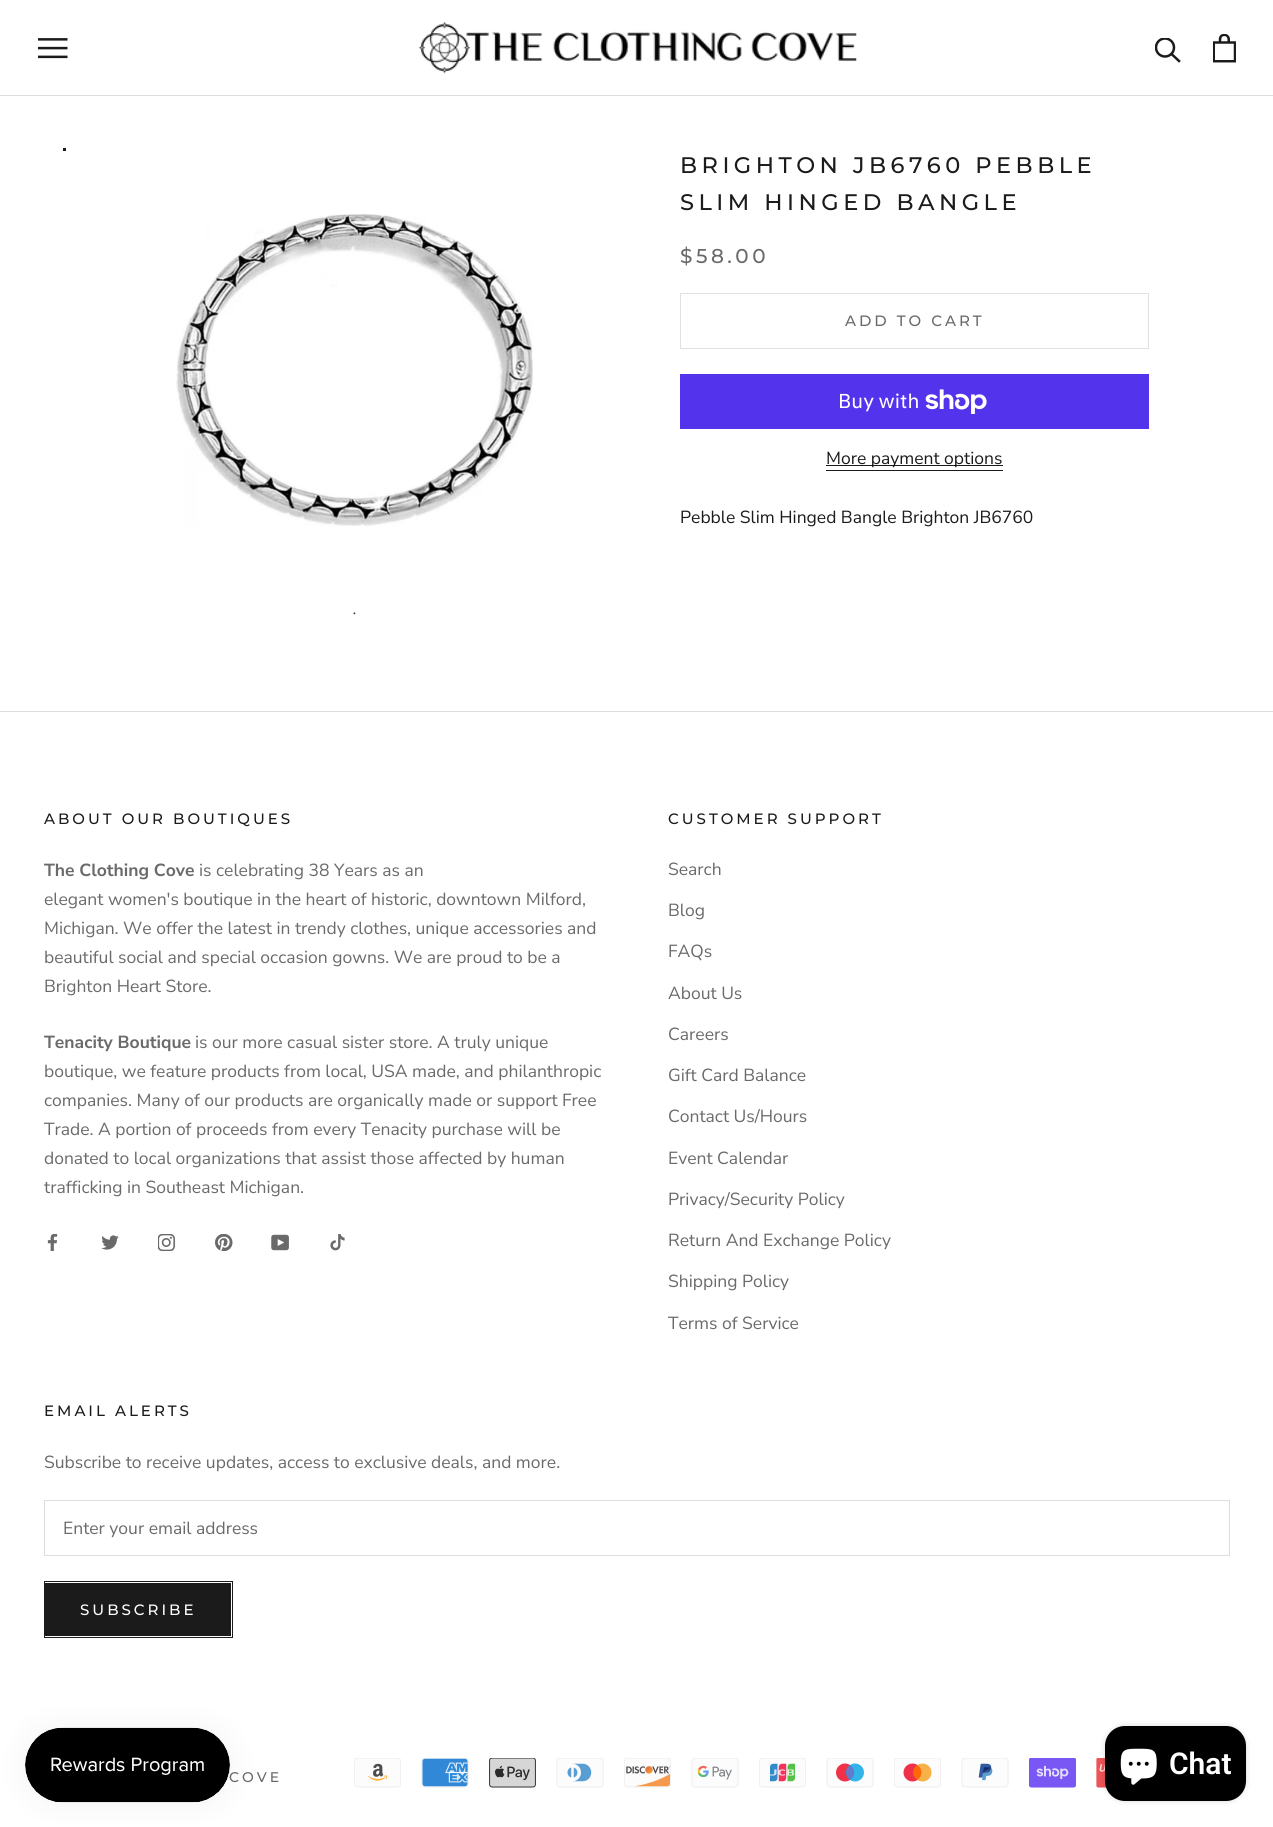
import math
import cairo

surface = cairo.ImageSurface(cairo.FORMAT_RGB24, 1273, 1827)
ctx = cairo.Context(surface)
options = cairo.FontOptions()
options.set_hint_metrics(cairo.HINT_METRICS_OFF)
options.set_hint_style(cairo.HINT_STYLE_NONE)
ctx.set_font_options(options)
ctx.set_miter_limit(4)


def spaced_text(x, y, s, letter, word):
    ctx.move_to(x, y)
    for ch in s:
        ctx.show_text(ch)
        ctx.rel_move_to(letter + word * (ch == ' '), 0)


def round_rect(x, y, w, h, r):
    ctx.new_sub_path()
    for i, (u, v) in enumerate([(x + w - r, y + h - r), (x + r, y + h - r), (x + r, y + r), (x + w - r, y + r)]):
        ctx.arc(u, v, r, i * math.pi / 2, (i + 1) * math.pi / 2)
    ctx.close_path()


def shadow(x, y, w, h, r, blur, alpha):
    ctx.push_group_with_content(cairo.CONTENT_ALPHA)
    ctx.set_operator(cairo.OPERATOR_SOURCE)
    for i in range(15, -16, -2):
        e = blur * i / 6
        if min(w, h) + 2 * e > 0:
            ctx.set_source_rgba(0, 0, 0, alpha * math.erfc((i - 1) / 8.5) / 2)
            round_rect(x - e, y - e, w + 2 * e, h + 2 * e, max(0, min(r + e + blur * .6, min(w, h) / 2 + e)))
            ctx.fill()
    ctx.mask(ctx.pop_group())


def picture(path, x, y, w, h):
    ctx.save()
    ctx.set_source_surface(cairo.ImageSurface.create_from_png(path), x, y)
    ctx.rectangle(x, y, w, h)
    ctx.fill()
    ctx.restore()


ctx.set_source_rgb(1, 1, 1)
ctx.paint()
ctx.set_source_rgb(0.867, 0.867, 0.867)
ctx.rectangle(0, 95, 1273, 1)
ctx.fill()
picture("img1.png", 38, 38, 30, 21)
picture("img2.png", 418, 22, 439, 52)
ctx.new_path()
ctx.move_to(1179, 61)
ctx.line_to(1171.5, 54)
ctx.set_source_rgb(0.11, 0.106, 0.106)
ctx.set_line_width(2.5)
ctx.set_line_cap(cairo.LINE_CAP_SQUARE)
ctx.stroke()
ctx.save()
ctx.rectangle(1155, 38, 26, 26)
ctx.clip()
ctx.arc(1165, 47.5, 9, 0, 2 * math.pi)
ctx.set_line_cap(cairo.LINE_CAP_BUTT)
ctx.stroke()
ctx.restore()
picture("img3.png", 1213, 34, 23, 29)
ctx.select_font_face("Montserrat Medium")
ctx.set_font_size(22.5)
spaced_text(680, 173, "BRIGHTON JB6760 PEBBLE", 4.5, 0)
spaced_text(680, 210, "SLIM HINGED BANGLE", 4.5, 0)
ctx.set_font_size(20)
ctx.set_source_rgb(0.416, 0.416, 0.416)
spaced_text(680, 263, "$58.00", 3.5, 0)
ctx.rectangle(680.5, 293.5, 468, 55)
ctx.set_source_rgb(0.882, 0.882, 0.882)
ctx.set_line_width(1)
ctx.set_line_cap(cairo.LINE_CAP_BUTT)
ctx.stroke()
ctx.set_font_size(15)
ctx.set_source_rgb(0.416, 0.416, 0.416)
spaced_text(845, 326, "ADD TO CART", 3, 0)
ctx.set_source_rgb(0.329, 0.2, 0.922)
ctx.rectangle(680, 374, 469, 55)
ctx.fill()
ctx.select_font_face("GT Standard")
ctx.set_font_size(20)
ctx.set_source_rgb(1, 1, 1)
ctx.move_to(838, 408)
ctx.show_text("Buy with")
picture("img4.png", 925, 389, 62, 25)
ctx.set_source_rgb(0.11, 0.106, 0.106)
ctx.rectangle(826, 465, 177, 1)
ctx.fill()
ctx.select_font_face("Nunito Sans")
ctx.set_font_size(17.5)
ctx.move_to(826, 464)
ctx.show_text("More payment options")
ctx.rectangle(826, 470, 177, 1)
ctx.fill()
ctx.move_to(680, 523)
ctx.show_text("Pebble Slim Hinged Bangle Brighton JB6760")
ctx.rectangle(63, 148, 3, 3)
ctx.fill()
picture("img5.png", 176, 214, 357, 312)
ctx.select_font_face("Liberation Serif")
ctx.set_font_size(8)
ctx.set_source_rgb(0.251, 0.251, 0.251)
ctx.move_to(353, 616)
ctx.show_text("•")
ctx.set_source_rgb(0.867, 0.867, 0.867)
ctx.rectangle(0, 711, 1273, 1)
ctx.fill()
ctx.select_font_face("Montserrat Medium")
ctx.set_font_size(15)
ctx.set_source_rgb(0.11, 0.106, 0.106)
spaced_text(44, 824, "ABOUT OUR BOUTIQUES", 3, 0)
ctx.select_font_face("Nunito Sans", cairo.FONT_SLANT_NORMAL, cairo.FONT_WEIGHT_BOLD)
ctx.set_font_size(17.5)
ctx.set_source_rgb(0.416, 0.416, 0.416)
ctx.move_to(44, 876)
ctx.show_text("The Clothing Cove")
ctx.select_font_face("Nunito Sans")
ctx.move_to(199, 876)
ctx.show_text("is celebrating 38 Years as an")
ctx.move_to(44, 905)
ctx.show_text("elegant women's boutique in the heart of historic, downtown Milford,")
ctx.move_to(44, 934)
ctx.show_text("Michigan. We offer the latest in trendy clothes, unique accessories and")
ctx.move_to(44, 963)
ctx.show_text("beautiful social and special occasion gowns. We are proud to be a")
ctx.move_to(44, 992)
ctx.show_text("Brighton Heart Store.")
ctx.select_font_face("Nunito Sans", cairo.FONT_SLANT_NORMAL, cairo.FONT_WEIGHT_BOLD)
ctx.move_to(44, 1048)
ctx.show_text("Tenacity Boutique")
ctx.select_font_face("Nunito Sans")
ctx.move_to(195, 1048)
ctx.show_text("is our more casual sister store. A truly unique")
ctx.move_to(44, 1077)
ctx.show_text("boutique, we feature products from local, USA made, and philanthropic")
ctx.move_to(44, 1106)
ctx.show_text("companies. Many of our products are organically made or support Free")
ctx.move_to(44, 1135)
ctx.show_text("Trade. A portion of proceeds from every Tenacity purchase will be")
ctx.move_to(44, 1164)
ctx.show_text("donated to local organizations that assist those affected by human")
ctx.move_to(44, 1193)
ctx.show_text("trafficking in Southeast Michigan.")
picture("img6.png", 47, 1234, 11, 17)
picture("img7.png", 101, 1235, 18, 15)
picture("img8.png", 158, 1234, 17, 17)
picture("img9.png", 215, 1234, 18, 17)
picture("img10.png", 271, 1234, 18, 17)
picture("img11.png", 330, 1234, 15, 17)
ctx.select_font_face("Montserrat Medium")
ctx.set_font_size(15)
ctx.set_source_rgb(0.11, 0.106, 0.106)
spaced_text(668, 824, "CUSTOMER SUPPORT", 3, 0)
ctx.select_font_face("Nunito Sans")
ctx.set_font_size(17.5)
ctx.set_source_rgb(0.416, 0.416, 0.416)
ctx.move_to(668, 875)
ctx.show_text("Search")
ctx.move_to(668, 916)
ctx.show_text("Blog")
ctx.move_to(668, 957)
ctx.show_text("FAQs")
ctx.move_to(668, 999)
ctx.show_text("About Us")
ctx.move_to(668, 1040)
ctx.show_text("Careers")
ctx.move_to(668, 1081)
ctx.show_text("Gift Card Balance")
ctx.move_to(668, 1122)
ctx.show_text("Contact Us/Hours")
ctx.move_to(668, 1164)
ctx.show_text("Event Calendar")
ctx.move_to(668, 1205)
ctx.show_text("Privacy/Security Policy")
ctx.move_to(668, 1246)
ctx.show_text("Return And Exchange Policy")
ctx.move_to(668, 1287)
ctx.show_text("Shipping Policy")
ctx.move_to(668, 1329)
ctx.show_text("Terms of Service")
ctx.select_font_face("Montserrat Medium")
ctx.set_font_size(15)
ctx.set_source_rgb(0.11, 0.106, 0.106)
spaced_text(44, 1416, "EMAIL ALERTS", 3, 0)
ctx.select_font_face("Nunito Sans")
ctx.set_font_size(17.5)
ctx.set_source_rgb(0.416, 0.416, 0.416)
ctx.move_to(44, 1468)
ctx.show_text("Subscribe to receive updates, access to exclusive deals, and more.")
ctx.rectangle(44.5, 1500.5, 1185, 55)
ctx.set_source_rgb(0.867, 0.867, 0.867)
ctx.stroke()
ctx.set_source_rgb(0.416, 0.416, 0.416)
ctx.move_to(63, 1534)
ctx.show_text("Enter your email address")
ctx.rectangle(44.5, 1581.5, 188, 56)
ctx.set_source_rgb(0.11, 0.106, 0.106)
ctx.stroke()
ctx.rectangle(45, 1583, 186, 53)
ctx.fill()
ctx.select_font_face("Montserrat Medium")
ctx.set_font_size(15)
ctx.set_source_rgb(1, 1, 1)
spaced_text(80, 1615, "SUBSCRIBE", 3, 0)
ctx.set_font_size(14)
ctx.set_source_rgb(0.416, 0.416, 0.416)
spaced_text(229, 1782, "COVE", 3, 0)
picture("img12.png", 354, 1758, 47, 30)
picture("img13.png", 421, 1758, 48, 30)
picture("img14.png", 489, 1758, 47, 30)
picture("img15.png", 556, 1758, 48, 30)
picture("img16.png", 624, 1758, 47, 30)
picture("img17.png", 691, 1758, 48, 30)
picture("img18.png", 759, 1758, 47, 30)
picture("img19.png", 826, 1758, 48, 30)
picture("img20.png", 894, 1758, 47, 30)
picture("img21.png", 961, 1758, 48, 30)
picture("img22.png", 1029, 1758, 47, 30)
picture("img23.png", 1096, 1758, 11, 30)
ctx.set_source_rgb(0, 0, 0)
shadow(25, 1728, 205, 75, 37.5, 15.5, 0.05)
picture("img24.png", 25, 1727, 205, 76)
shadow(1105, 1726, 141, 75, 20, 3, 0.15)
ctx.set_source_rgb(0, 0, 0)
round_rect(1105, 1726, 141, 75, 20)
ctx.fill()
picture("img25.png", 1120, 1748, 37, 37)
ctx.select_font_face("Roboto SemiBold")
ctx.set_font_size(30)
ctx.set_source_rgb(1, 1, 1)
ctx.move_to(1169, 1774)
ctx.show_text("Chat")
surface.write_to_png("page.png")
